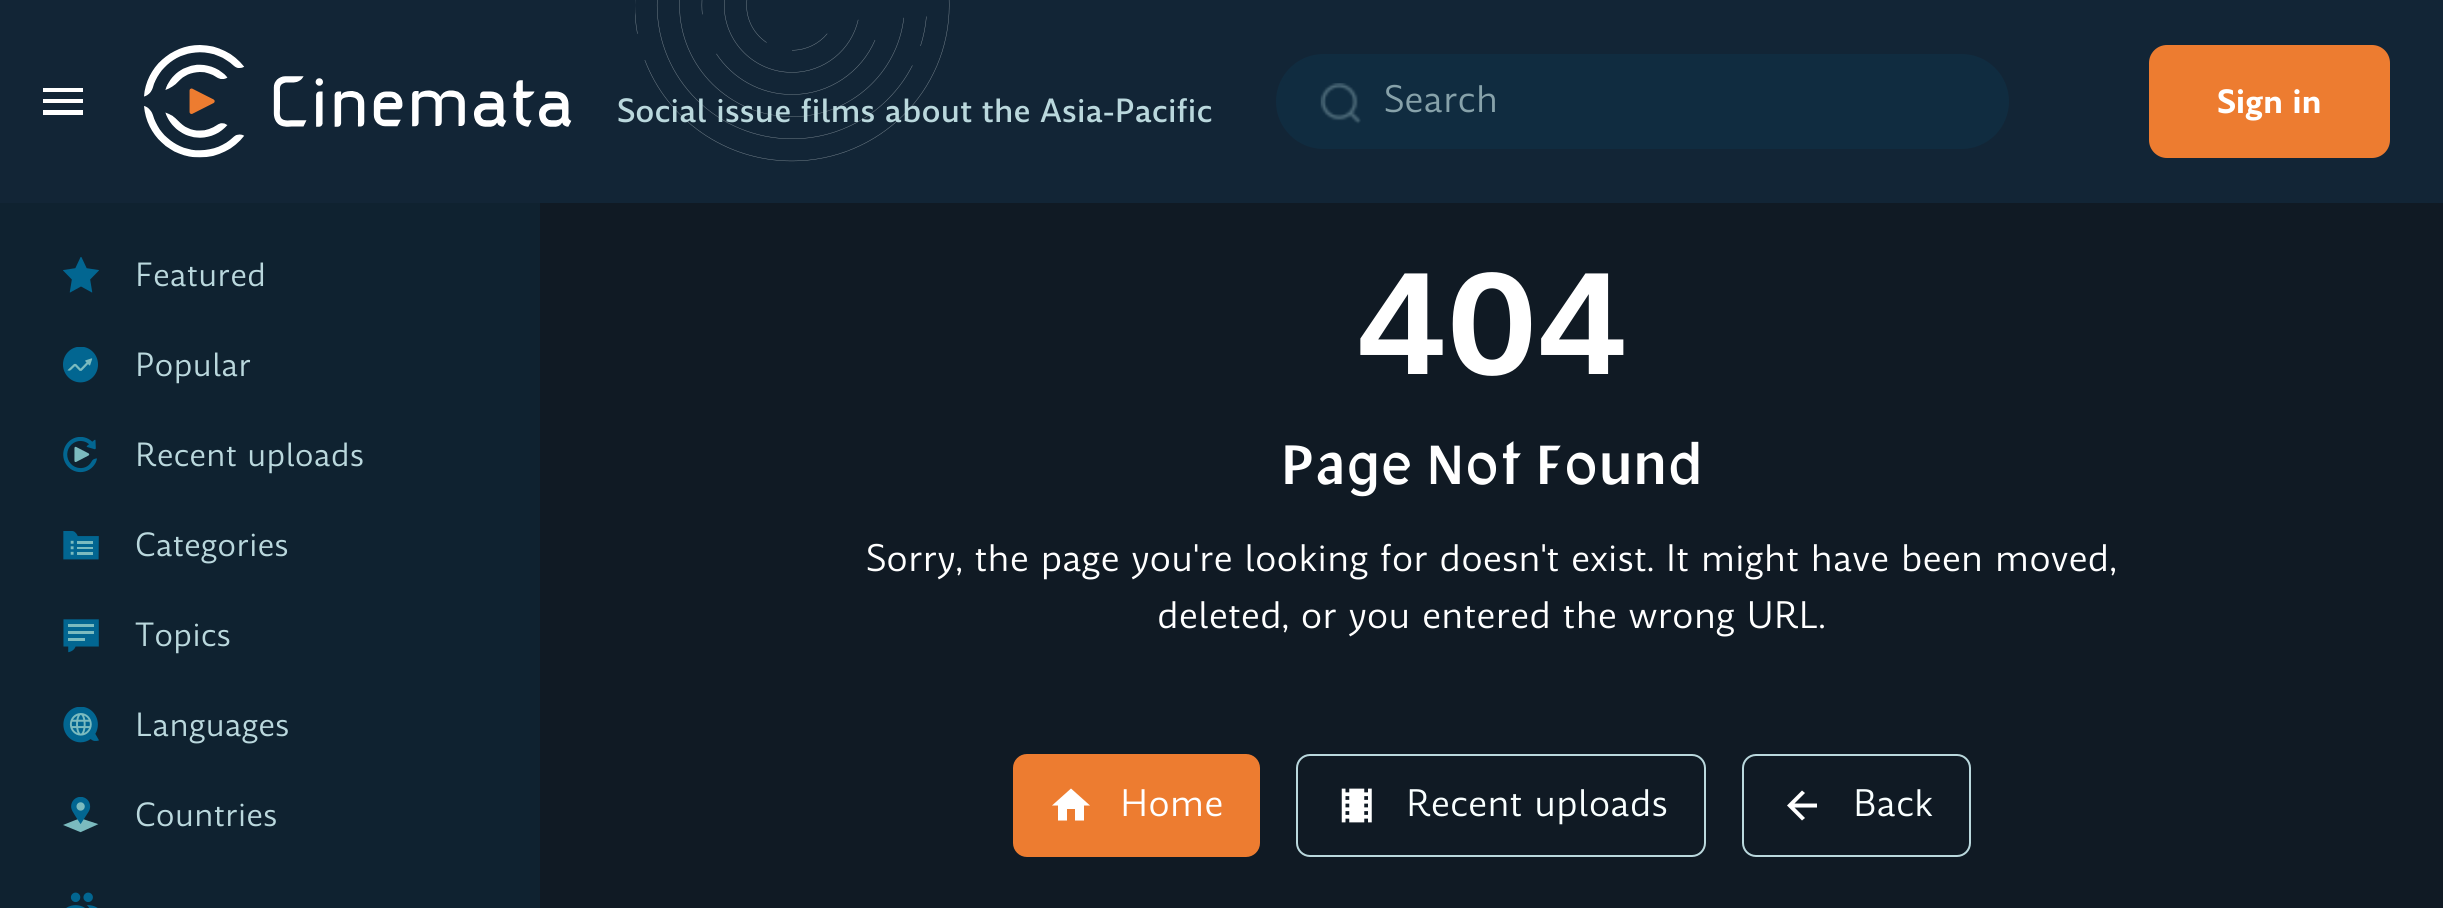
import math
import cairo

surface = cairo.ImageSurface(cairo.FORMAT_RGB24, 2443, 908)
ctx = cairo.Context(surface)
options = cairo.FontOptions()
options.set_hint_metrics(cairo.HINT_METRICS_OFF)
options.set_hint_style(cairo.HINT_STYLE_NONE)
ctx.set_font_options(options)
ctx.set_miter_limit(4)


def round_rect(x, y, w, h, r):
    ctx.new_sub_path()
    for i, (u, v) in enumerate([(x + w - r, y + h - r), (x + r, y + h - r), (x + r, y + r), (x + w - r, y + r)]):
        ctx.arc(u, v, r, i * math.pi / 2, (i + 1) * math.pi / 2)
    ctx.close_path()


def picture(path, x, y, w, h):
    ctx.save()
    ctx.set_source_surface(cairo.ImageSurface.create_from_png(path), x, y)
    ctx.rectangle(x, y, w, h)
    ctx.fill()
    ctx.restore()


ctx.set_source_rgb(0.063, 0.102, 0.141)
ctx.paint()
ctx.set_source_rgb(0.071, 0.145, 0.212)
ctx.rectangle(0, 0, 2443, 203)
ctx.fill()
picture("img1.png", 635, 0, 315, 162)
ctx.set_source_rgb(0.063, 0.173, 0.251)
round_rect(1277, 55, 731, 93, 46.5)
ctx.fill_preserve()
ctx.stroke()
picture("img2.png", 1320, 83, 41, 41)
ctx.select_font_face("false")
ctx.set_font_size(36)
ctx.set_source_rgb(0.529, 0.635, 0.667)
ctx.move_to(1384, 112)
ctx.show_text("Search")
ctx.set_source_rgb(0.929, 0.486, 0.188)
round_rect(2149, 45, 241, 113, 18)
ctx.fill()
ctx.select_font_face("false", cairo.FONT_SLANT_NORMAL, cairo.FONT_WEIGHT_BOLD)
ctx.set_font_size(31.5)
ctx.set_source_rgb(1, 1, 1)
ctx.move_to(2217, 113)
ctx.show_text("Sign in")
ctx.new_path()
ctx.move_to(43, 88)
ctx.line_to(83, 88)
ctx.line_to(83, 92)
ctx.line_to(43, 92)
ctx.close_path()
ctx.move_to(43, 103)
ctx.line_to(43, 99)
ctx.line_to(83, 99)
ctx.line_to(83, 103)
ctx.close_path()
ctx.move_to(43, 115)
ctx.line_to(43, 110)
ctx.line_to(83, 110)
ctx.line_to(83, 115)
ctx.close_path()
ctx.fill()
picture("img3.png", 144, 45, 428, 113)
ctx.select_font_face("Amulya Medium")
ctx.set_source_rgb(0.729, 0.847, 0.867)
ctx.move_to(617, 122)
ctx.show_text("Social issue films about the Asia-Pacific")
ctx.set_source_rgb(0.059, 0.133, 0.188)
ctx.rectangle(0, 203, 540, 705)
ctx.fill()
picture("img4.png", 63, 257, 36, 36)
ctx.select_font_face("false")
ctx.set_source_rgb(0.729, 0.847, 0.867)
ctx.move_to(135, 286)
ctx.show_text("Featured")
picture("img5.png", 63, 347, 35, 36)
ctx.move_to(135, 376)
ctx.show_text("Popular")
picture("img6.png", 63, 437, 34, 36)
ctx.move_to(135, 466)
ctx.show_text("Recent uploads")
picture("img7.png", 63, 531, 36, 29)
ctx.move_to(135, 556)
ctx.show_text("Categories")
picture("img8.png", 63, 619, 36, 34)
ctx.move_to(135, 646)
ctx.show_text("Topics")
picture("img9.png", 63, 707, 36, 36)
ctx.move_to(135, 736)
ctx.show_text("Languages")
picture("img10.png", 63, 797, 36, 36)
ctx.move_to(135, 826)
ctx.show_text("Countries")
picture("img11.png", 66, 892, 32, 16)
ctx.select_font_face("false", cairo.FONT_SLANT_NORMAL, cairo.FONT_WEIGHT_BOLD)
ctx.set_font_size(135)
ctx.set_source_rgb(1, 1, 1)
ctx.move_to(1357, 374)
ctx.show_text("404")
ctx.select_font_face("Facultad")
ctx.set_font_size(54)
ctx.move_to(1280, 484)
ctx.show_text("Page Not Found")
ctx.select_font_face("false")
ctx.set_font_size(36)
ctx.move_to(866, 571)
ctx.show_text("Sorry, the page you're looking for doesn't exist. It might have been moved,")
ctx.move_to(1157, 628)
ctx.show_text("deleted, or you entered the wrong URL.")
ctx.set_source_rgb(0.929, 0.486, 0.188)
round_rect(1013, 754, 247, 103, 14)
ctx.fill()
ctx.set_source_rgb(1, 1, 1)
ctx.new_path()
ctx.move_to(1067, 820.5)
ctx.line_to(1067, 809)
ctx.line_to(1075, 809)
ctx.line_to(1075, 820.5)
ctx.line_to(1084, 820.5)
ctx.line_to(1084, 805.5)
ctx.line_to(1090, 805.5)
ctx.line_to(1071, 788.5)
ctx.line_to(1052, 805.5)
ctx.line_to(1058, 805.5)
ctx.line_to(1058, 820.5)
ctx.close_path()
ctx.fill()
ctx.move_to(1120, 816)
ctx.show_text("Home")
round_rect(1297, 755, 408, 101, 13)
ctx.set_source_rgb(0.729, 0.847, 0.867)
ctx.stroke()
picture("img12.png", 1341, 788, 31, 35)
ctx.set_source_rgb(0.973, 1, 1)
ctx.move_to(1406, 816)
ctx.show_text("Recent uploads")
round_rect(1743, 755, 227, 101, 13)
ctx.set_source_rgb(0.729, 0.847, 0.867)
ctx.stroke()
ctx.set_source_rgb(1, 1, 1)
ctx.new_path()
ctx.move_to(1817, 803.5)
ctx.line_to(1794.5, 803.5)
ctx.line_to(1805, 793)
ctx.line_to(1802, 790.5)
ctx.line_to(1787, 805.5)
ctx.line_to(1802, 820.5)
ctx.line_to(1805, 818)
ctx.line_to(1794.5, 807.5)
ctx.line_to(1817, 807.5)
ctx.close_path()
ctx.fill()
ctx.set_source_rgb(0.973, 1, 1)
ctx.move_to(1853, 816)
ctx.show_text("Back")
surface.write_to_png("page.png")
